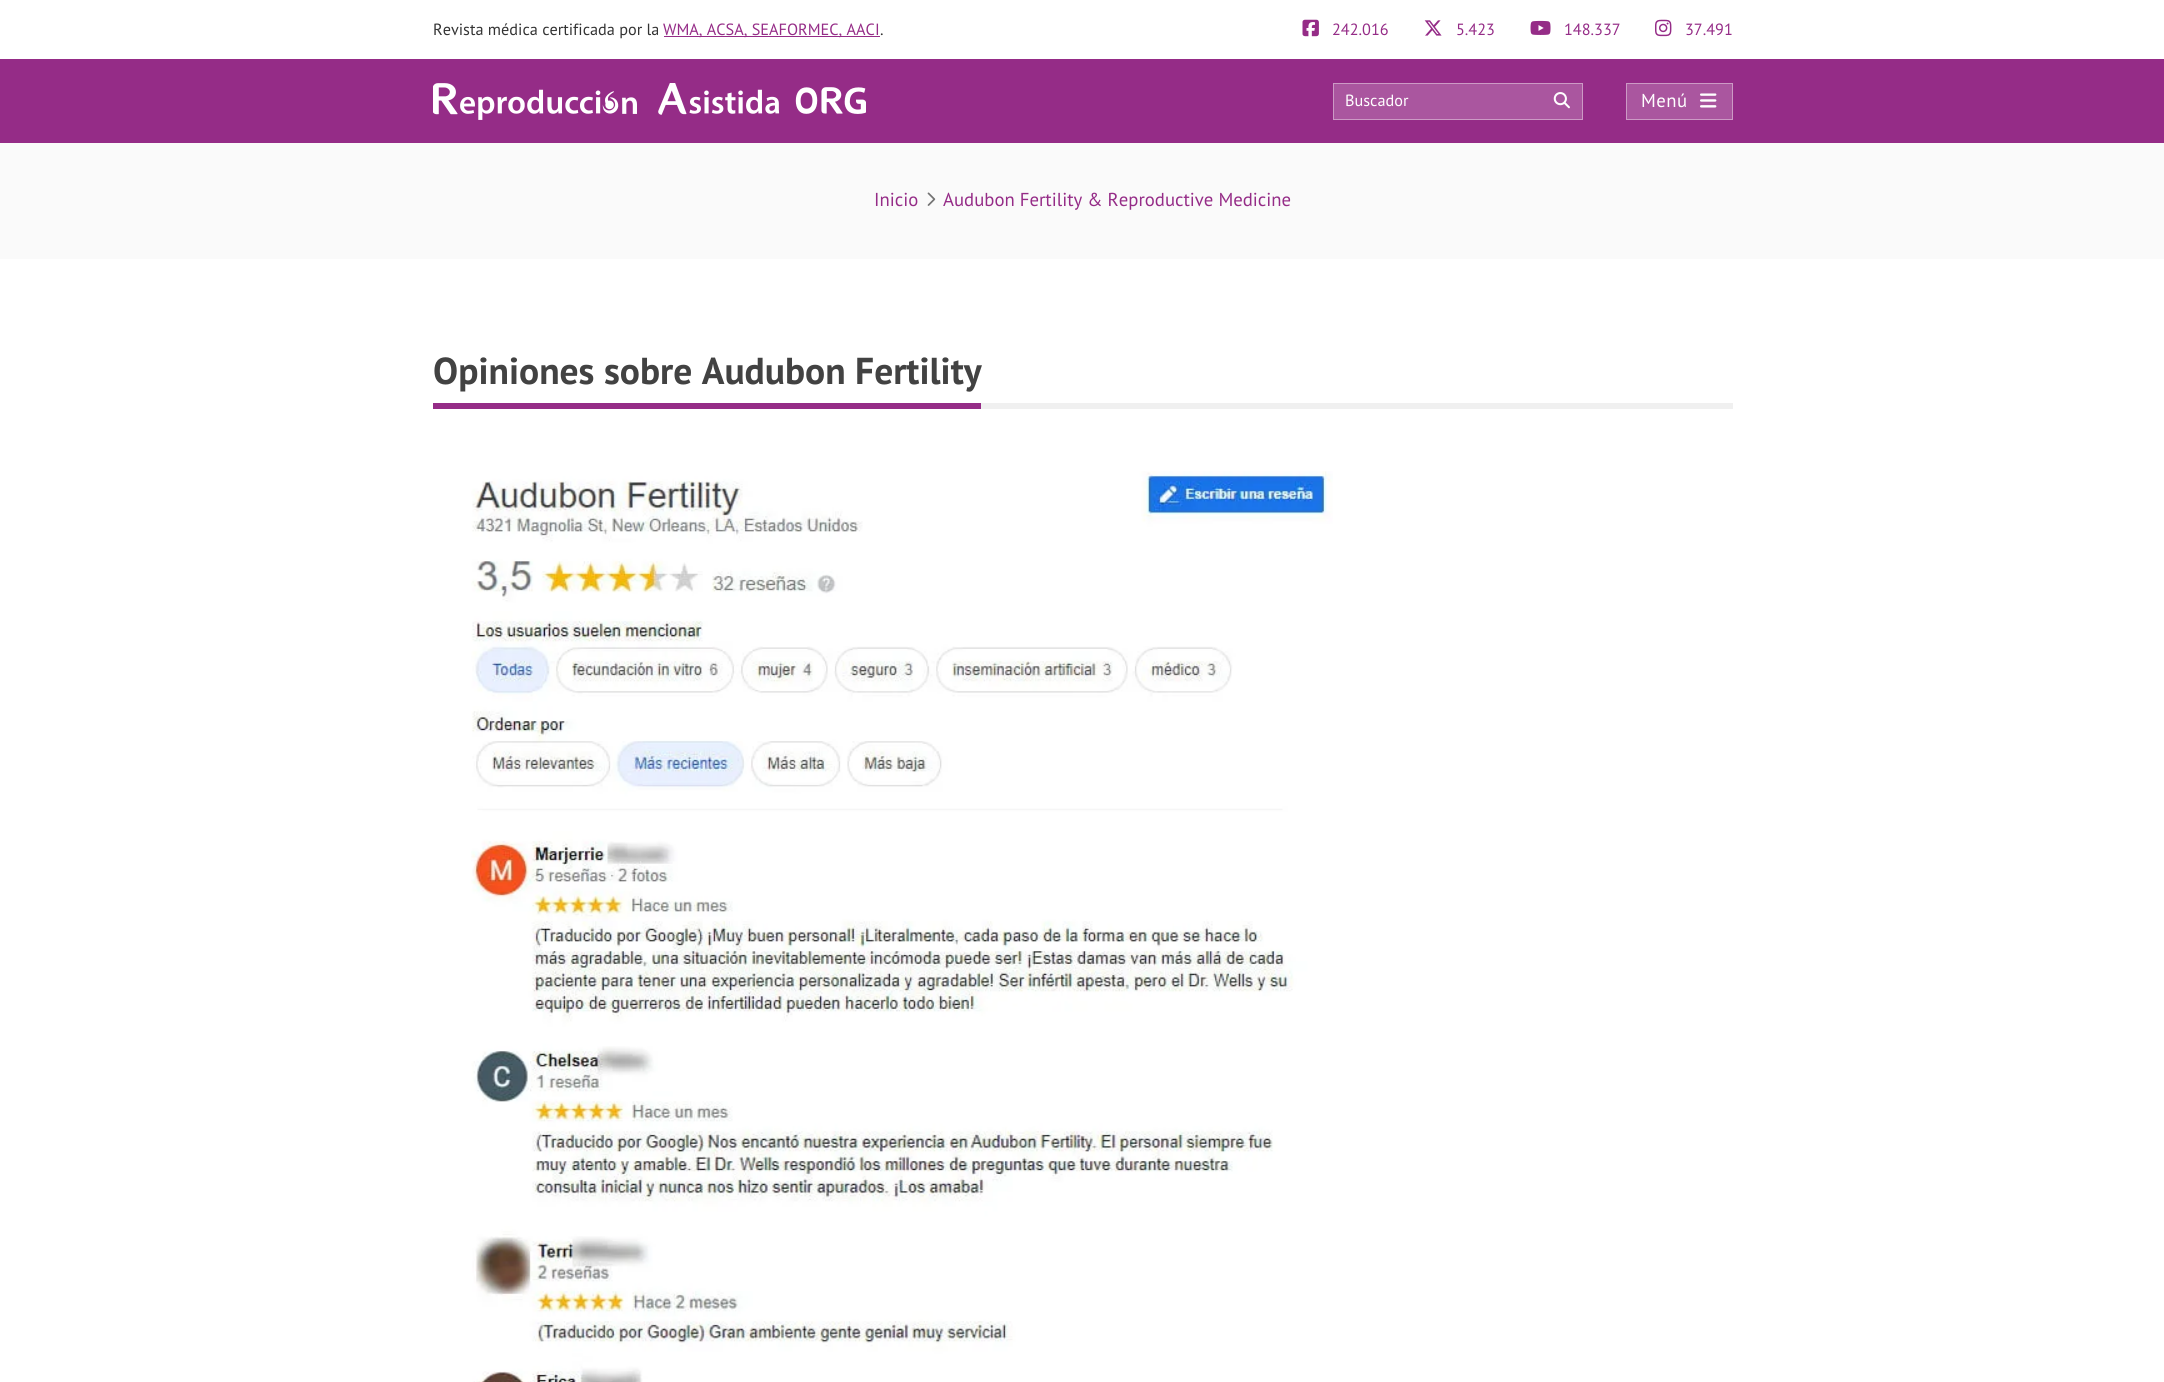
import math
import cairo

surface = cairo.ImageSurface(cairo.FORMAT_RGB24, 2164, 1382)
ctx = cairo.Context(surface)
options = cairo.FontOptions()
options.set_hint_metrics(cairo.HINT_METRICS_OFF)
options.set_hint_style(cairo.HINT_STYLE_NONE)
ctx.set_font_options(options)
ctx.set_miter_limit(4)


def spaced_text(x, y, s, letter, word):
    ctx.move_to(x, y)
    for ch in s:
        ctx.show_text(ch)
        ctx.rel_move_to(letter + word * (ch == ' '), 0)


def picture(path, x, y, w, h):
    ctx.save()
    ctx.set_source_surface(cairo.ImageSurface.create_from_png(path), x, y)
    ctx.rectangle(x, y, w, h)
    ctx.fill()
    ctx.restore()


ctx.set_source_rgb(1, 1, 1)
ctx.paint()
ctx.select_font_face("PT Sans")
ctx.set_font_size(16.25)
ctx.set_source_rgb(0.2, 0.2, 0.2)
ctx.move_to(433, 35)
ctx.show_text("Revista médica certificada por la")
ctx.set_source_rgb(0.584, 0.173, 0.529)
ctx.rectangle(664, 36, 216, 1)
ctx.fill()
ctx.move_to(663, 35)
ctx.show_text("WMA, ACSA, SEAFORMEC, AACI")
ctx.set_source_rgb(0.2, 0.2, 0.2)
ctx.move_to(880, 35)
ctx.show_text(".")
picture("img1.png", 1302, 19, 17, 18)
ctx.set_source_rgb(0.584, 0.173, 0.529)
ctx.move_to(1332, 35)
ctx.show_text("242.016")
picture("img2.png", 1424, 20, 18, 16)
ctx.move_to(1456, 35)
ctx.show_text("5.423")
picture("img3.png", 1530, 20, 21, 15)
ctx.move_to(1564, 35)
ctx.show_text("148.337")
picture("img4.png", 1655, 19, 17, 18)
ctx.move_to(1685, 35)
ctx.show_text("37.491")
ctx.rectangle(0, 59, 2164, 84)
ctx.fill()
picture("img5.png", 433, 83, 433, 37)
ctx.set_source_rgb(0.667, 0.337, 0.624)
ctx.rectangle(1334, 84, 248, 35)
ctx.fill()
ctx.rectangle(1333.5, 83.5, 249, 36)
ctx.set_source_rgb(0.8, 0.604, 0.773)
ctx.set_line_width(1)
ctx.stroke()
ctx.set_source_rgb(1, 1, 1)
ctx.move_to(1345, 106)
ctx.show_text("Buscador")
picture("img6.png", 1553, 92, 17, 17)
ctx.set_source_rgb(0.667, 0.337, 0.624)
ctx.rectangle(1627, 84, 105, 35)
ctx.fill()
picture("img7.png", 1700, 93, 17, 15)
ctx.rectangle(1626.5, 83.5, 106, 36)
ctx.set_source_rgb(0.8, 0.604, 0.773)
ctx.stroke()
ctx.set_font_size(18.75)
ctx.set_source_rgb(1, 1, 1)
spaced_text(1641, 107, "Menú", 0.5, 0)
ctx.set_source_rgb(0.98, 0.98, 0.98)
ctx.rectangle(0, 143, 2164, 116)
ctx.fill()
ctx.set_source_rgb(0.584, 0.173, 0.529)
ctx.move_to(874, 206)
ctx.show_text("Inicio")
picture("img8.png", 927, 192, 9, 14)
ctx.move_to(943, 206)
ctx.show_text("Audubon Fertility & Reproductive Medicine")
ctx.rectangle(433, 403, 548, 6)
ctx.fill()
ctx.select_font_face("PT Sans", cairo.FONT_SLANT_NORMAL, cairo.FONT_WEIGHT_BOLD)
ctx.set_font_size(37.5)
ctx.set_source_rgb(0.259, 0.259, 0.259)
ctx.move_to(433, 384)
ctx.show_text("Opiniones sobre Audubon Fertility")
ctx.set_source_rgb(0.941, 0.941, 0.941)
ctx.rectangle(981, 403, 752, 6)
ctx.fill()
picture("img9.png", 471, 471, 862, 911)
surface.write_to_png("page.png")
